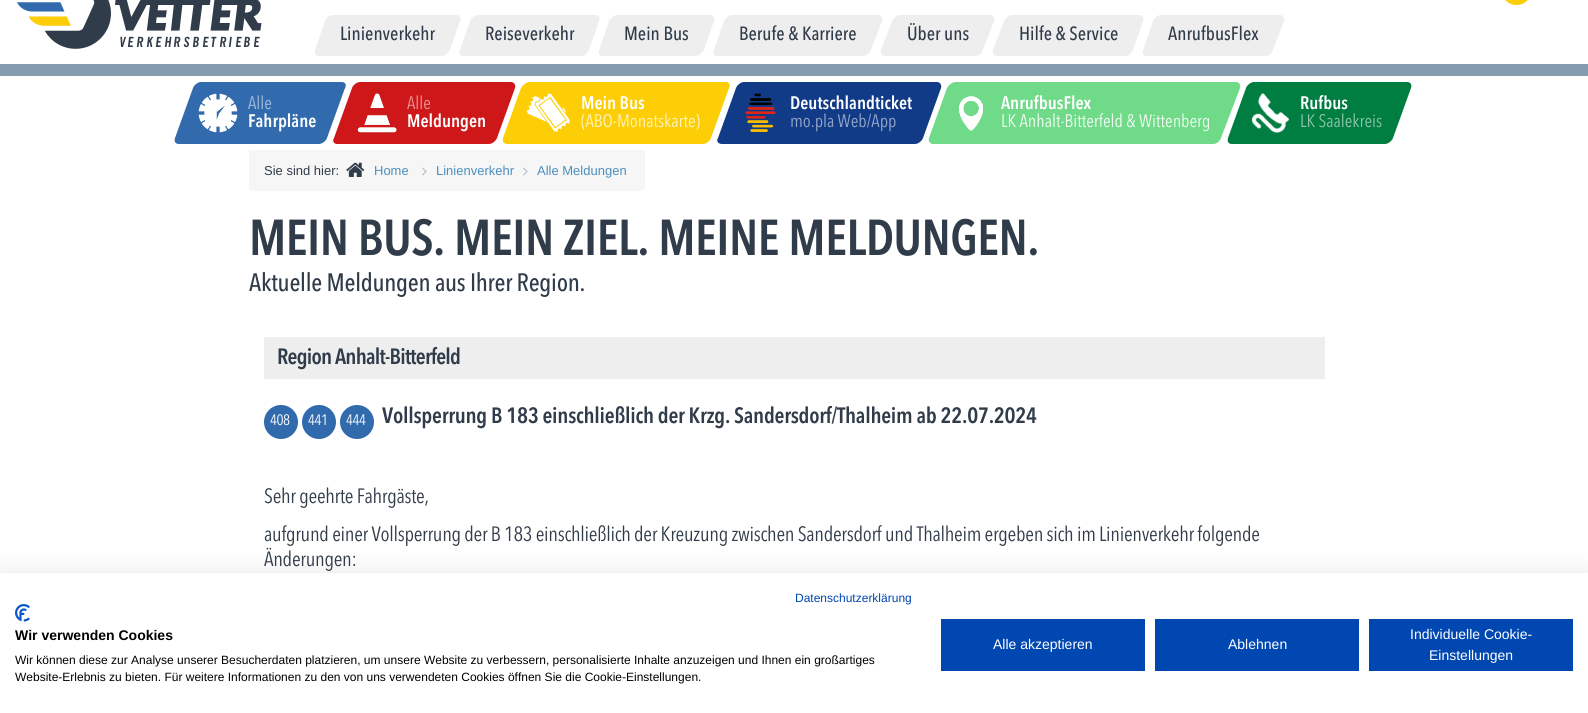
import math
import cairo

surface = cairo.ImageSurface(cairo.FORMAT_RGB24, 1588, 713)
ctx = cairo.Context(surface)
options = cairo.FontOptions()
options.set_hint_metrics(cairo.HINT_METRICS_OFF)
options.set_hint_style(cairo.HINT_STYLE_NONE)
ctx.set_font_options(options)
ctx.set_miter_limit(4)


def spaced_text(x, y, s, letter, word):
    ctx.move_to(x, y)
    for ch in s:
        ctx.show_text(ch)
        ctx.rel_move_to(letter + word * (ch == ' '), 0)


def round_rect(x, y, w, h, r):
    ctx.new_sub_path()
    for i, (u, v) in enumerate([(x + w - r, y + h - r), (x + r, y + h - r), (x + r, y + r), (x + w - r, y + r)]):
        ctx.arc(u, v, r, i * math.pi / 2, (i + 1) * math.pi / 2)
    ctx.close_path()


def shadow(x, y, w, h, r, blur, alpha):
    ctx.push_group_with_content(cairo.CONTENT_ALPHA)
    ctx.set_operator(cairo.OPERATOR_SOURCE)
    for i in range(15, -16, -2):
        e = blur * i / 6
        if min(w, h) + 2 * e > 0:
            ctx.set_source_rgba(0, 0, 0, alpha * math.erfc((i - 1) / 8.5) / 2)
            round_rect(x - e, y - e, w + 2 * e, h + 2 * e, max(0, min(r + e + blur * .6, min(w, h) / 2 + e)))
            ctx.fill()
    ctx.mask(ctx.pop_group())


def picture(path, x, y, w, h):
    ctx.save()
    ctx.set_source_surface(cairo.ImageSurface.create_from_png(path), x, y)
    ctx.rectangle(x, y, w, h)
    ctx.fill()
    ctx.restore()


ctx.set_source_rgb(1, 1, 1)
ctx.paint()
ctx.set_source_rgb(0.992, 0.804, 0.027)
round_rect(1501, -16, 31, 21, 15.5)
ctx.fill()
picture("img1.png", 17, 0, 245, 49)
ctx.set_source_rgb(0.933, 0.933, 0.933)
ctx.new_path()
ctx.move_to(333, 15)
ctx.line_to(456, 15)
ctx.curve_to(460, 15, 461, 18, 460, 21)
ctx.line_to(450, 50)
ctx.curve_to(448, 53, 445, 56, 441, 56)
ctx.line_to(319, 56)
ctx.curve_to(315, 56, 314, 53, 315, 50)
ctx.line_to(325, 21)
ctx.curve_to(326, 18, 330, 15, 333, 15)
ctx.close_path()
ctx.fill()
ctx.select_font_face("Avenir Next Medium")
ctx.set_font_size(19)
ctx.set_source_rgb(0.192, 0.235, 0.29)
ctx.move_to(340, 40)
ctx.show_text("Linienverkehr")
ctx.set_source_rgb(0.933, 0.933, 0.933)
ctx.new_path()
ctx.move_to(478, 15)
ctx.line_to(596, 15)
ctx.curve_to(599, 15, 601, 18, 599, 21)
ctx.line_to(589, 50)
ctx.curve_to(588, 53, 584, 56, 581, 56)
ctx.line_to(463, 56)
ctx.curve_to(460, 56, 458, 53, 460, 50)
ctx.line_to(470, 21)
ctx.curve_to(471, 18, 475, 15, 478, 15)
ctx.close_path()
ctx.fill()
ctx.set_source_rgb(0.192, 0.235, 0.29)
ctx.move_to(485, 40)
ctx.show_text("Reiseverkehr")
ctx.set_source_rgb(0.933, 0.933, 0.933)
ctx.new_path()
ctx.move_to(618, 15)
ctx.line_to(710, 15)
ctx.curve_to(714, 15, 715, 18, 714, 21)
ctx.line_to(704, 50)
ctx.curve_to(702, 53, 699, 56, 695, 56)
ctx.line_to(603, 56)
ctx.curve_to(599, 56, 598, 53, 599, 50)
ctx.line_to(609, 21)
ctx.curve_to(611, 18, 614, 15, 618, 15)
ctx.close_path()
ctx.fill()
ctx.set_source_rgb(0.192, 0.235, 0.29)
ctx.move_to(624, 40)
ctx.show_text("Mein Bus")
ctx.set_source_rgb(0.933, 0.933, 0.933)
ctx.new_path()
ctx.move_to(732, 15)
ctx.line_to(878, 15)
ctx.curve_to(881, 15, 883, 18, 882, 21)
ctx.line_to(871, 50)
ctx.curve_to(870, 53, 866, 56, 863, 56)
ctx.line_to(717, 56)
ctx.curve_to(714, 56, 712, 53, 714, 50)
ctx.line_to(724, 21)
ctx.curve_to(725, 18, 729, 15, 732, 15)
ctx.close_path()
ctx.fill()
ctx.set_source_rgb(0.192, 0.235, 0.29)
ctx.move_to(739, 40)
ctx.show_text("Berufe & Karriere")
ctx.set_source_rgb(0.933, 0.933, 0.933)
ctx.new_path()
ctx.move_to(900, 15)
ctx.line_to(990, 15)
ctx.curve_to(993, 15, 995, 18, 994, 21)
ctx.line_to(983, 50)
ctx.curve_to(982, 53, 979, 56, 975, 56)
ctx.line_to(885, 56)
ctx.curve_to(882, 56, 880, 53, 881, 50)
ctx.line_to(892, 21)
ctx.curve_to(893, 18, 897, 15, 900, 15)
ctx.close_path()
ctx.fill()
ctx.set_source_rgb(0.192, 0.235, 0.29)
ctx.move_to(907, 40)
ctx.show_text("Über uns")
ctx.set_source_rgb(0.933, 0.933, 0.933)
ctx.new_path()
ctx.move_to(1012, 15)
ctx.line_to(1139, 15)
ctx.curve_to(1143, 15, 1144, 18, 1143, 21)
ctx.line_to(1133, 50)
ctx.curve_to(1132, 53, 1128, 56, 1125, 56)
ctx.line_to(997, 56)
ctx.curve_to(994, 56, 992, 53, 993, 50)
ctx.line_to(1004, 21)
ctx.curve_to(1005, 18, 1009, 15, 1012, 15)
ctx.close_path()
ctx.fill()
ctx.set_source_rgb(0.192, 0.235, 0.29)
ctx.move_to(1019, 40)
ctx.show_text("Hilfe & Service")
ctx.set_source_rgb(0.933, 0.933, 0.933)
ctx.new_path()
ctx.move_to(1161, 15)
ctx.line_to(1280, 15)
ctx.curve_to(1283, 15, 1285, 18, 1284, 21)
ctx.line_to(1273, 50)
ctx.curve_to(1272, 53, 1269, 56, 1265, 56)
ctx.line_to(1147, 56)
ctx.curve_to(1143, 56, 1142, 53, 1143, 50)
ctx.line_to(1153, 21)
ctx.curve_to(1154, 18, 1158, 15, 1161, 15)
ctx.close_path()
ctx.fill()
ctx.set_source_rgb(0.192, 0.235, 0.29)
ctx.move_to(1168, 40)
ctx.show_text("AnrufbusFlex")
ctx.set_source_rgb(0.518, 0.608, 0.678)
ctx.rectangle(0, 64, 1588, 12)
ctx.fill()
ctx.set_source_rgb(0.192, 0.416, 0.678)
ctx.new_path()
ctx.move_to(201, 82)
ctx.line_to(342, 82)
ctx.curve_to(345, 82, 347, 85, 345, 88)
ctx.line_to(327, 138)
ctx.curve_to(326, 141, 322, 144, 319, 144)
ctx.line_to(179, 144)
ctx.curve_to(175, 144, 174, 141, 175, 138)
ctx.line_to(193, 88)
ctx.curve_to(194, 85, 198, 82, 201, 82)
ctx.close_path()
ctx.fill()
picture("img2.png", 198, 93, 40, 40)
ctx.select_font_face("Avenir Next")
ctx.set_font_size(18)
ctx.set_source_rgb(0.635, 0.737, 0.855)
ctx.move_to(248, 109)
ctx.show_text("Alle")
ctx.select_font_face("Avenir Next SemiBold")
ctx.set_source_rgb(1, 1, 1)
ctx.move_to(248, 127)
ctx.show_text("Fahrpläne")
ctx.set_source_rgb(0.804, 0.09, 0.098)
ctx.new_path()
ctx.move_to(360, 82)
ctx.line_to(511, 82)
ctx.curve_to(514, 82, 516, 85, 515, 88)
ctx.line_to(497, 138)
ctx.curve_to(496, 141, 492, 144, 489, 144)
ctx.line_to(337, 144)
ctx.curve_to(334, 144, 332, 141, 334, 138)
ctx.line_to(352, 88)
ctx.curve_to(353, 85, 357, 82, 360, 82)
ctx.close_path()
ctx.fill()
picture("img3.png", 357, 93, 40, 40)
ctx.select_font_face("Avenir Next")
ctx.set_source_rgb(0.914, 0.592, 0.596)
ctx.move_to(407, 109)
ctx.show_text("Alle")
ctx.select_font_face("Avenir Next SemiBold")
ctx.set_source_rgb(1, 1, 1)
ctx.move_to(407, 127)
ctx.show_text("Meldungen")
ctx.set_source_rgb(0.992, 0.804, 0.027)
ctx.new_path()
ctx.move_to(530, 82)
ctx.line_to(726, 82)
ctx.curve_to(729, 82, 731, 85, 729, 88)
ctx.line_to(711, 138)
ctx.curve_to(710, 141, 706, 144, 703, 144)
ctx.line_to(507, 144)
ctx.curve_to(504, 144, 502, 141, 503, 138)
ctx.line_to(521, 88)
ctx.curve_to(523, 85, 526, 82, 530, 82)
ctx.close_path()
ctx.fill()
picture("img4.png", 526, 93, 44, 39)
ctx.set_source_rgb(1, 1, 1)
ctx.move_to(581, 109)
ctx.show_text("Mein Bus")
ctx.select_font_face("Avenir Next")
ctx.set_source_rgb(1, 0.953, 0.757)
ctx.move_to(581, 127)
ctx.show_text("(ABO-Monatskarte)")
ctx.set_source_rgb(0.067, 0.231, 0.529)
ctx.new_path()
ctx.move_to(744, 82)
ctx.line_to(937, 82)
ctx.curve_to(940, 82, 942, 85, 941, 88)
ctx.line_to(923, 138)
ctx.curve_to(922, 141, 918, 144, 915, 144)
ctx.line_to(722, 144)
ctx.curve_to(718, 144, 716, 141, 718, 138)
ctx.line_to(736, 88)
ctx.curve_to(737, 85, 741, 82, 744, 82)
ctx.close_path()
ctx.fill()
picture("img5.png", 745, 93, 31, 39)
ctx.select_font_face("Avenir Next SemiBold")
ctx.set_source_rgb(1, 1, 1)
ctx.move_to(790, 109)
ctx.show_text("Deutschlandticket")
ctx.select_font_face("Avenir Next")
ctx.set_source_rgb(0.58, 0.655, 0.788)
ctx.move_to(790, 127)
ctx.show_text("mo.pla Web/App")
ctx.set_source_rgb(0.435, 0.855, 0.533)
ctx.new_path()
ctx.move_to(956, 82)
ctx.line_to(1236, 82)
ctx.curve_to(1239, 82, 1241, 85, 1240, 88)
ctx.line_to(1221, 138)
ctx.curve_to(1220, 141, 1217, 144, 1213, 144)
ctx.line_to(933, 144)
ctx.curve_to(930, 144, 928, 141, 929, 138)
ctx.line_to(947, 88)
ctx.curve_to(949, 85, 952, 82, 956, 82)
ctx.close_path()
ctx.fill()
picture("img6.png", 958, 96, 25, 35)
ctx.select_font_face("Avenir Next SemiBold")
ctx.set_source_rgb(1, 1, 1)
ctx.move_to(1001, 109)
ctx.show_text("AnrufbusFlex")
ctx.select_font_face("Avenir Next")
ctx.set_source_rgb(0.945, 0.984, 0.953)
ctx.move_to(1001, 127)
ctx.show_text("LK Anhalt-Bitterfeld & Wittenberg")
ctx.set_source_rgb(0, 0.49, 0.251)
ctx.new_path()
ctx.move_to(1254, 82)
ctx.line_to(1407, 82)
ctx.curve_to(1411, 82, 1412, 85, 1411, 88)
ctx.line_to(1393, 138)
ctx.curve_to(1392, 141, 1388, 144, 1385, 144)
ctx.line_to(1232, 144)
ctx.curve_to(1228, 144, 1227, 141, 1228, 138)
ctx.line_to(1246, 88)
ctx.curve_to(1247, 85, 1251, 82, 1254, 82)
ctx.close_path()
ctx.fill()
picture("img7.png", 1251, 93, 39, 40)
ctx.select_font_face("Avenir Next SemiBold")
ctx.set_source_rgb(1, 1, 1)
ctx.move_to(1300, 109)
ctx.show_text("Rufbus")
ctx.select_font_face("Avenir Next")
ctx.set_source_rgb(0.549, 0.773, 0.663)
ctx.move_to(1300, 127)
ctx.show_text("LK Saalekreis")
ctx.set_source_rgb(0.961, 0.961, 0.961)
ctx.new_path()
ctx.move_to(249, 150)
ctx.line_to(645, 150)
ctx.line_to(645, 187)
ctx.curve_to(645, 189, 643, 191, 641, 191)
ctx.line_to(253, 191)
ctx.curve_to(251, 191, 249, 189, 249, 187)
ctx.close_path()
ctx.fill()
ctx.select_font_face("Liberation Sans")
ctx.set_font_size(13)
ctx.set_source_rgb(0.192, 0.235, 0.29)
ctx.move_to(264, 175)
ctx.show_text("Sie sind hier:")
picture("img8.png", 346, 162, 19, 15)
ctx.set_source_rgb(0.298, 0.561, 0.741)
ctx.move_to(374, 175)
ctx.show_text("Home")
picture("img9.png", 422, 167, 5, 9)
ctx.move_to(436, 175)
ctx.show_text("Linienverkehr")
picture("img9.png", 523, 167, 5, 9)
ctx.move_to(537, 175)
ctx.show_text("Alle Meldungen")
ctx.select_font_face("Avenir Next SemiBold")
ctx.set_font_size(50)
ctx.set_source_rgb(0.192, 0.235, 0.29)
spaced_text(249, 255, "MEIN BUS. MEIN ZIEL. MEINE MELDUNGEN.", -0.5, 0)
ctx.select_font_face("Avenir Next Medium")
ctx.set_font_size(25)
spaced_text(249, 291, "Aktuelle Meldungen aus Ihrer Region.", -0.25, 0)
ctx.set_source_rgb(0.933, 0.933, 0.933)
ctx.rectangle(264, 337, 1061, 42)
ctx.fill()
ctx.select_font_face("Avenir Next SemiBold")
ctx.set_font_size(22)
ctx.set_source_rgb(0.192, 0.235, 0.29)
spaced_text(277, 364, "Region Anhalt-Bitterfeld", -0.75, 0)
ctx.set_source_rgb(0.192, 0.416, 0.678)
ctx.new_path()
ctx.arc(281, 422, 17, 0, 2 * math.pi)
ctx.fill()
ctx.select_font_face("Avenir Next")
ctx.set_font_size(15)
ctx.set_source_rgb(1, 1, 1)
spaced_text(270, 425, "408", -0.5, 0)
ctx.set_source_rgb(0.192, 0.416, 0.678)
ctx.new_path()
ctx.arc(319, 422, 17, 0, 2 * math.pi)
ctx.fill()
ctx.set_source_rgb(1, 1, 1)
spaced_text(308, 425, "441", -0.5, 0)
ctx.set_source_rgb(0.192, 0.416, 0.678)
ctx.new_path()
ctx.arc(357, 422, 17, 0, 2 * math.pi)
ctx.fill()
ctx.set_source_rgb(1, 1, 1)
spaced_text(346, 425, "444", -0.5, 0)
ctx.select_font_face("Avenir Next SemiBold")
ctx.set_font_size(22)
ctx.set_source_rgb(0.192, 0.235, 0.29)
spaced_text(382, 423, "Vollsperrung B 183 einschließlich der Krzg. Sandersdorf/Thalheim ab 22.07.2024", -0.25, 0)
ctx.select_font_face("Avenir Next")
ctx.set_font_size(20.55)
spaced_text(264, 503, "Sehr geehrte Fahrgäste,", -0.29, 0)
spaced_text(264, 541, "aufgrund einer Vollsperrung der B 183 einschließlich der Kreuzung zwischen Sandersdorf und Thalheim ergeben sich im Linienverkehr folgende", -0.29, 0)
spaced_text(264, 566, "Änderungen:", -0.29, 0)
ctx.set_source_rgb(0, 0, 0)
shadow(0, 573, 1588, 140, 0, 12, 0.1)
ctx.set_source_rgb(1, 1, 1)
ctx.rectangle(0, 573, 1588, 140)
ctx.fill()
ctx.select_font_face("Liberation Sans")
ctx.set_font_size(12)
ctx.set_source_rgb(0, 0.278, 0.698)
ctx.move_to(795, 602)
ctx.show_text("Datenschutzerklärung")
picture("img10.png", 15, 604, 15, 18)
ctx.select_font_face("Liberation Sans", cairo.FONT_SLANT_NORMAL, cairo.FONT_WEIGHT_BOLD)
ctx.set_font_size(14)
ctx.set_source_rgb(0, 0, 0)
ctx.move_to(15, 640)
ctx.show_text("Wir verwenden Cookies")
ctx.select_font_face("Liberation Sans")
ctx.set_font_size(12)
ctx.move_to(15, 664)
ctx.show_text("Wir können diese zur Analyse unserer Besucherdaten platzieren, um unsere Website zu verbessern, personalisierte Inhalte anzuzeigen und Ihnen ein großartiges")
ctx.move_to(15, 681)
ctx.show_text("Website-Erlebnis zu bieten. Für weitere Informationen zu den von uns verwendeten Cookies öffnen Sie die Cookie-Einstellungen.")
ctx.set_source_rgb(0, 0.278, 0.698)
ctx.rectangle(941, 619, 204, 52)
ctx.fill()
ctx.set_font_size(14)
ctx.set_source_rgb(1, 1, 1)
ctx.move_to(993, 649)
ctx.show_text("Alle akzeptieren")
ctx.set_source_rgb(0, 0.278, 0.698)
ctx.rectangle(1155, 619, 204, 52)
ctx.fill()
ctx.set_source_rgb(1, 1, 1)
ctx.move_to(1228, 649)
ctx.show_text("Ablehnen")
ctx.set_source_rgb(0, 0.278, 0.698)
ctx.rectangle(1369, 619, 204, 52)
ctx.fill()
ctx.set_source_rgb(1, 1, 1)
ctx.move_to(1410, 639)
ctx.show_text("Individuelle Cookie-")
ctx.move_to(1429, 660)
ctx.show_text("Einstellungen")
surface.write_to_png("page.png")
